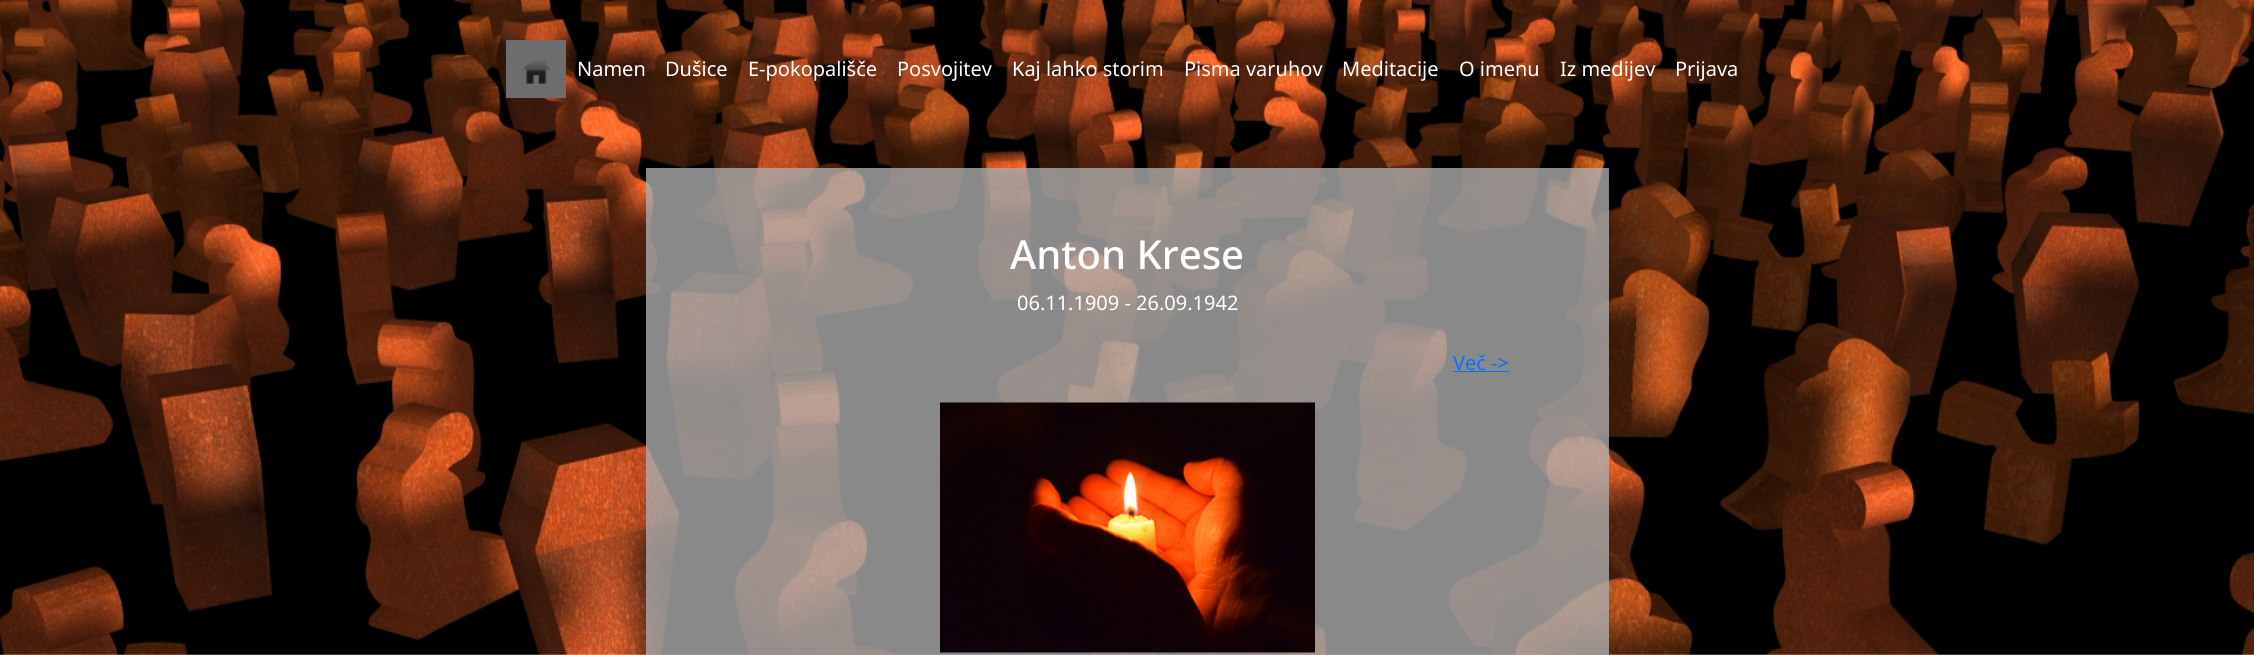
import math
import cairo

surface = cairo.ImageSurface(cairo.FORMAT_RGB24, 2254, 655)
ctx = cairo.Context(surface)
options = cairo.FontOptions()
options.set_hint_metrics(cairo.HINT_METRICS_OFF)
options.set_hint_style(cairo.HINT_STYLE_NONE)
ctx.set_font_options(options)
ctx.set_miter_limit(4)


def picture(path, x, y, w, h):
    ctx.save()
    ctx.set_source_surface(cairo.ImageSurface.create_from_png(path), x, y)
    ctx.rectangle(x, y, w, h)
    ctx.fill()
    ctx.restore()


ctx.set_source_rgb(1, 1, 1)
ctx.paint()
picture("img1.png", 0, 0, 2254, 655)
ctx.set_source_rgb(0.427, 0.427, 0.427)
ctx.rectangle(506, 40, 60, 58)
ctx.fill()
picture("img2.png", 523, 60, 27, 24)
ctx.select_font_face("Noto Sans")
ctx.set_font_size(20)
ctx.set_source_rgb(1, 1, 1)
ctx.move_to(577, 76)
ctx.show_text("Namen")
ctx.move_to(665, 76)
ctx.show_text("Dušice")
ctx.move_to(748, 76)
ctx.show_text("E-pokopališče")
ctx.move_to(897, 76)
ctx.show_text("Posvojitev")
ctx.move_to(1012, 76)
ctx.show_text("Kaj lahko storim")
ctx.move_to(1184, 76)
ctx.show_text("Pisma varuhov")
ctx.move_to(1342, 76)
ctx.show_text("Meditacije")
ctx.move_to(1459, 76)
ctx.show_text("O imenu")
ctx.move_to(1560, 76)
ctx.show_text("Iz medijev")
ctx.move_to(1675, 76)
ctx.show_text("Prijava")
ctx.set_source_rgba(0.671, 0.671, 0.671, 0.8)
ctx.rectangle(646, 168, 963, 487)
ctx.fill()
ctx.select_font_face("Noto Sans Medium")
ctx.set_font_size(40)
ctx.set_source_rgb(1, 1, 1)
ctx.move_to(1010, 269)
ctx.show_text("Anton Krese")
ctx.select_font_face("Noto Sans")
ctx.set_font_size(20)
ctx.move_to(1017, 310)
ctx.show_text("06.11.1909 - 26.09.1942")
ctx.set_source_rgb(0.051, 0.431, 0.992)
ctx.move_to(1453, 370)
ctx.show_text("Več ->")
ctx.rectangle(1453, 371, 56, 1)
ctx.fill()
picture("img3.png", 940, 402, 375, 251)
surface.write_to_png("page.png")
